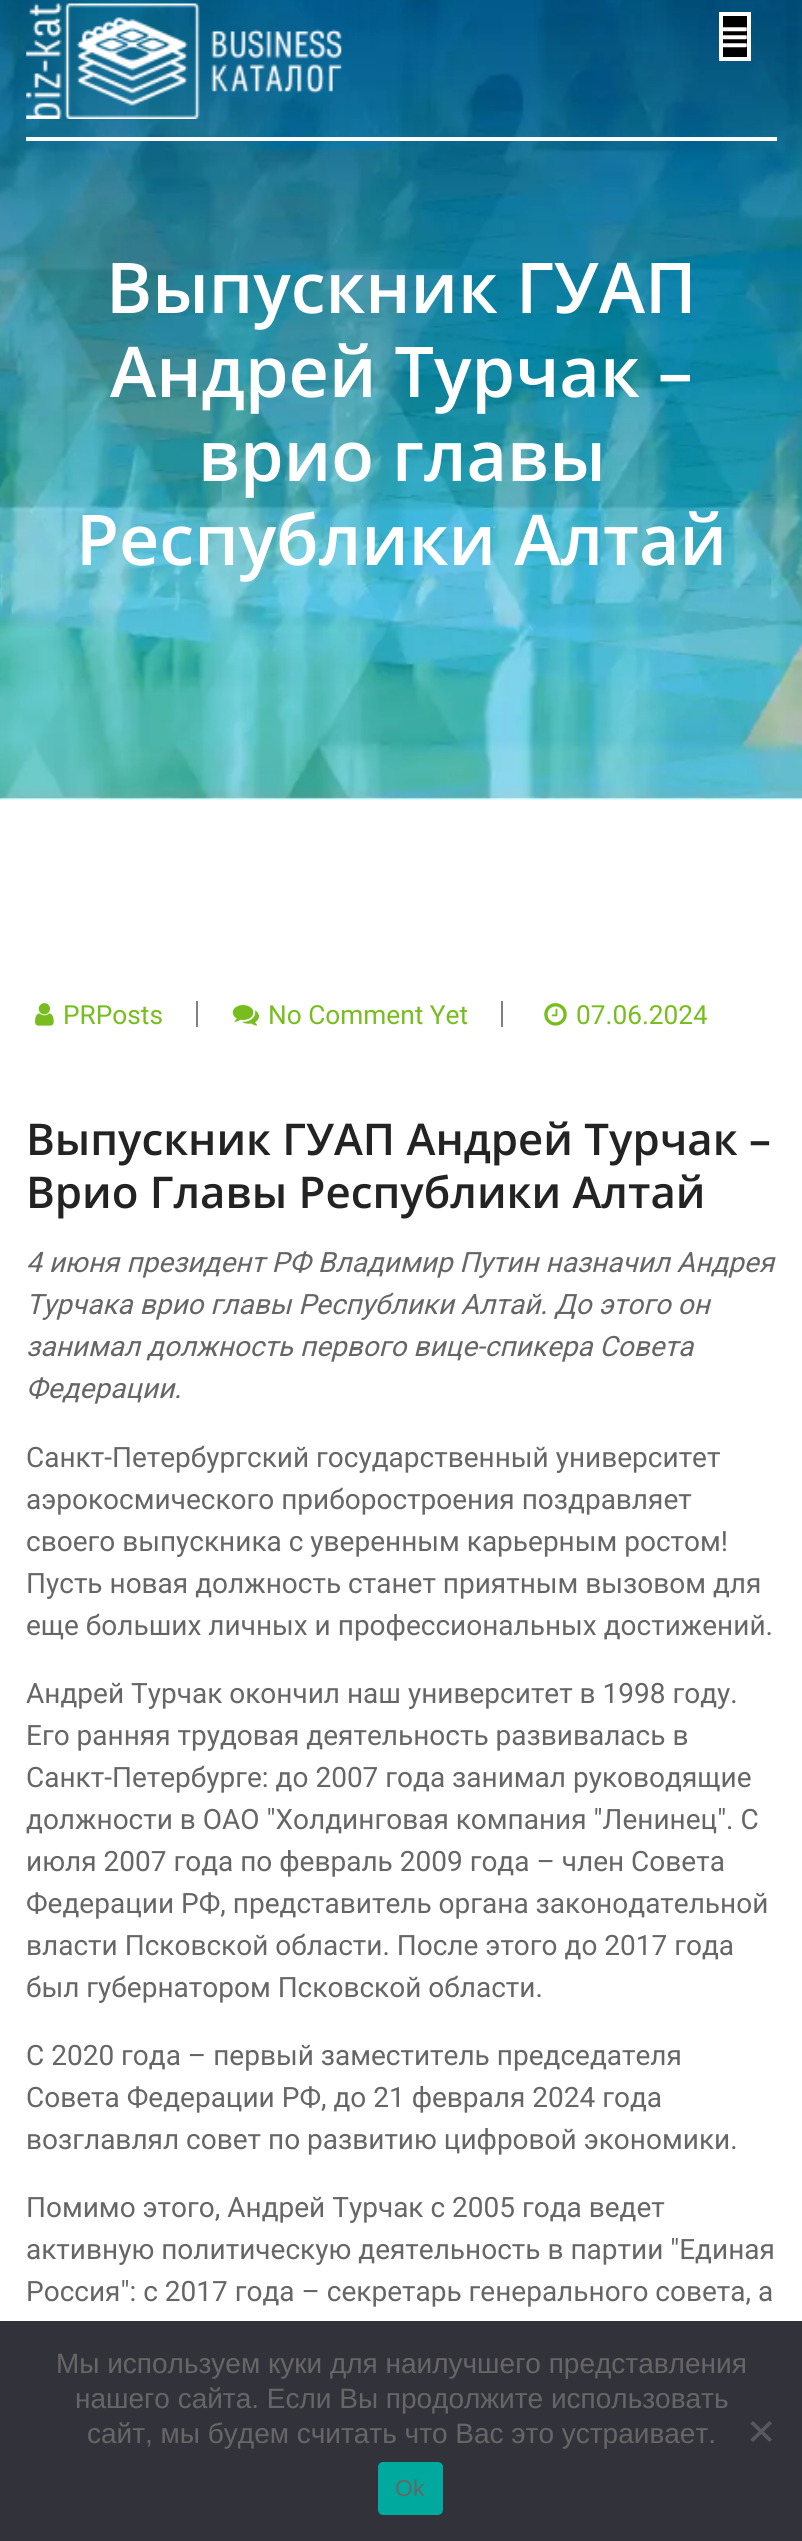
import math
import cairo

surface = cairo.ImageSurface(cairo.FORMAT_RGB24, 802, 2541)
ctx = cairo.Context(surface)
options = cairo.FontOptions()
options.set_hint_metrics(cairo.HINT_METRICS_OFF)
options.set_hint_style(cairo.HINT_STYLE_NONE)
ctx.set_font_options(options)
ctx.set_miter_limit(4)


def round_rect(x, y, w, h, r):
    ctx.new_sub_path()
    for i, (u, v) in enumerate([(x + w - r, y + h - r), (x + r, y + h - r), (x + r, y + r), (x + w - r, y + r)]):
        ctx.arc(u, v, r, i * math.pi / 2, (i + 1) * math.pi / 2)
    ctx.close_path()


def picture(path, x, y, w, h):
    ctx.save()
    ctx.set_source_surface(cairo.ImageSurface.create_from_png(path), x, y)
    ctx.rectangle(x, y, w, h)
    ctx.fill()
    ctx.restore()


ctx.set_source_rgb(1, 1, 1)
ctx.paint()
picture("img3.png", 0, 0, 802, 800)
ctx.set_source_rgb(1, 1, 1)
ctx.rectangle(26, 137, 751, 4)
ctx.fill()
picture("img1.png", 26, 3, 316, 116)
ctx.set_source_rgb(0, 0, 0)
ctx.rectangle(721, 14, 28, 45)
ctx.fill_preserve()
ctx.set_source_rgb(1, 1, 1)
ctx.set_line_width(4)
ctx.stroke()
picture("img2.png", 723, 27, 24, 21)
ctx.select_font_face("Open Sans SemiBold")
ctx.set_font_size(70)
ctx.move_to(106, 313)
ctx.show_text("Выпускник ГУАП")
ctx.move_to(110, 397)
ctx.show_text("Андрей Турчак –")
ctx.move_to(198, 481)
ctx.show_text("врио главы")
ctx.move_to(76, 565)
ctx.show_text("Республики Алтай")
picture("img4.png", 35, 1003, 19, 23)
ctx.select_font_face("Roboto")
ctx.set_font_size(26.25)
ctx.set_source_rgb(0.467, 0.741, 0.118)
ctx.move_to(63, 1024)
ctx.show_text("PRPosts")
ctx.set_source_rgb(0.502, 0.502, 0.502)
ctx.rectangle(196, 1001, 2, 26)
ctx.fill()
picture("img5.png", 232, 1005, 27, 21)
ctx.set_source_rgb(0.467, 0.741, 0.118)
ctx.move_to(268, 1024)
ctx.show_text("No Comment Yet")
ctx.set_source_rgb(0.502, 0.502, 0.502)
ctx.rectangle(501, 1001, 2, 26)
ctx.fill()
picture("img6.png", 544, 1003, 23, 23)
ctx.set_source_rgb(0.467, 0.741, 0.118)
ctx.move_to(576, 1024)
ctx.show_text("07.06.2024")
ctx.select_font_face("Open Sans SemiBold")
ctx.set_font_size(43.75)
ctx.set_source_rgb(0.137, 0.137, 0.137)
ctx.move_to(26, 1155)
ctx.show_text("Выпускник ГУАП Андрей Турчак –")
ctx.move_to(26, 1208)
ctx.show_text("Врио Главы Республики Алтай")
ctx.select_font_face("Roboto", cairo.FONT_SLANT_ITALIC)
ctx.set_font_size(28)
ctx.set_source_rgb(0.4, 0.4, 0.4)
ctx.move_to(26, 1272)
ctx.show_text("4 июня президент РФ Владимир Путин назначил Андрея")
ctx.move_to(26, 1314)
ctx.show_text("Турчака врио главы Республики Алтай. До этого он")
ctx.move_to(26, 1356)
ctx.show_text("занимал должность первого вице-спикера Совета")
ctx.move_to(26, 1398)
ctx.show_text("Федерации.")
ctx.select_font_face("Roboto")
ctx.move_to(26, 1467)
ctx.show_text("Санкт-Петербургский государственный университет")
ctx.move_to(26, 1509)
ctx.show_text("аэрокосмического приборостроения поздравляет")
ctx.move_to(26, 1551)
ctx.show_text("своего выпускника с уверенным карьерным ростом!")
ctx.move_to(26, 1593)
ctx.show_text("Пусть новая должность станет приятным вызовом для")
ctx.move_to(26, 1635)
ctx.show_text("еще больших личных и профессиональных достижений.")
ctx.move_to(26, 1703)
ctx.show_text("Андрей Турчак окончил наш университет в 1998 году.")
ctx.move_to(26, 1745)
ctx.show_text("Его ранняя трудовая деятельность развивалась в")
ctx.move_to(26, 1787)
ctx.show_text("Санкт-Петербурге: до 2007 года занимал руководящие")
ctx.move_to(26, 1829)
ctx.show_text("должности в ОАО \"Холдинговая компания \"Ленинец\". С")
ctx.move_to(26, 1871)
ctx.show_text("июля 2007 года по февраль 2009 года – член Совета")
ctx.move_to(26, 1913)
ctx.show_text("Федерации РФ, представитель органа законодательной")
ctx.move_to(26, 1955)
ctx.show_text("власти Псковской области. После этого до 2017 года")
ctx.move_to(26, 1997)
ctx.show_text("был губернатором Псковской области.")
ctx.move_to(26, 2065)
ctx.show_text("С 2020 года – первый заместитель председателя")
ctx.move_to(26, 2107)
ctx.show_text("Совета Федерации РФ, до 21 февраля 2024 года")
ctx.move_to(26, 2149)
ctx.show_text("возглавлял совет по развитию цифровой экономики.")
ctx.move_to(26, 2217)
ctx.show_text("Помимо этого, Андрей Турчак с 2005 года ведет")
ctx.move_to(26, 2259)
ctx.show_text("активную политическую деятельность в партии \"Единая")
ctx.move_to(26, 2301)
ctx.show_text("Россия\": с 2017 года – секретарь генерального совета, а")
ctx.set_source_rgb(0.196, 0.196, 0.227)
ctx.rectangle(0, 2321, 802, 220)
ctx.fill()
ctx.select_font_face("Liberation Sans")
ctx.set_source_rgb(0.4, 0.4, 0.4)
ctx.move_to(56, 2373)
ctx.show_text("Мы используем куки для наилучшего представления")
ctx.move_to(75, 2408)
ctx.show_text("нашего сайта. Если Вы продолжите использовать")
ctx.move_to(87, 2443)
ctx.show_text("сайт, мы будем считать что Вас это устраивает.")
ctx.set_source_rgb(0.349, 0.349, 0.365)
ctx.new_path()
ctx.move_to(769.5, 2421)
ctx.line_to(772, 2423.5)
ctx.line_to(753, 2442)
ctx.line_to(750.5, 2439.5)
ctx.close_path()
ctx.fill()
ctx.new_path()
ctx.move_to(750.5, 2423.5)
ctx.line_to(753, 2421)
ctx.line_to(772, 2439.5)
ctx.line_to(769.5, 2442)
ctx.close_path()
ctx.fill()
ctx.set_source_rgb(0, 0.663, 0.616)
round_rect(378, 2462, 65, 53, 5)
ctx.fill()
ctx.set_font_size(23)
ctx.set_source_rgb(0.4, 0.4, 0.4)
ctx.move_to(395, 2496)
ctx.show_text("Ok")
surface.write_to_png("page.png")
